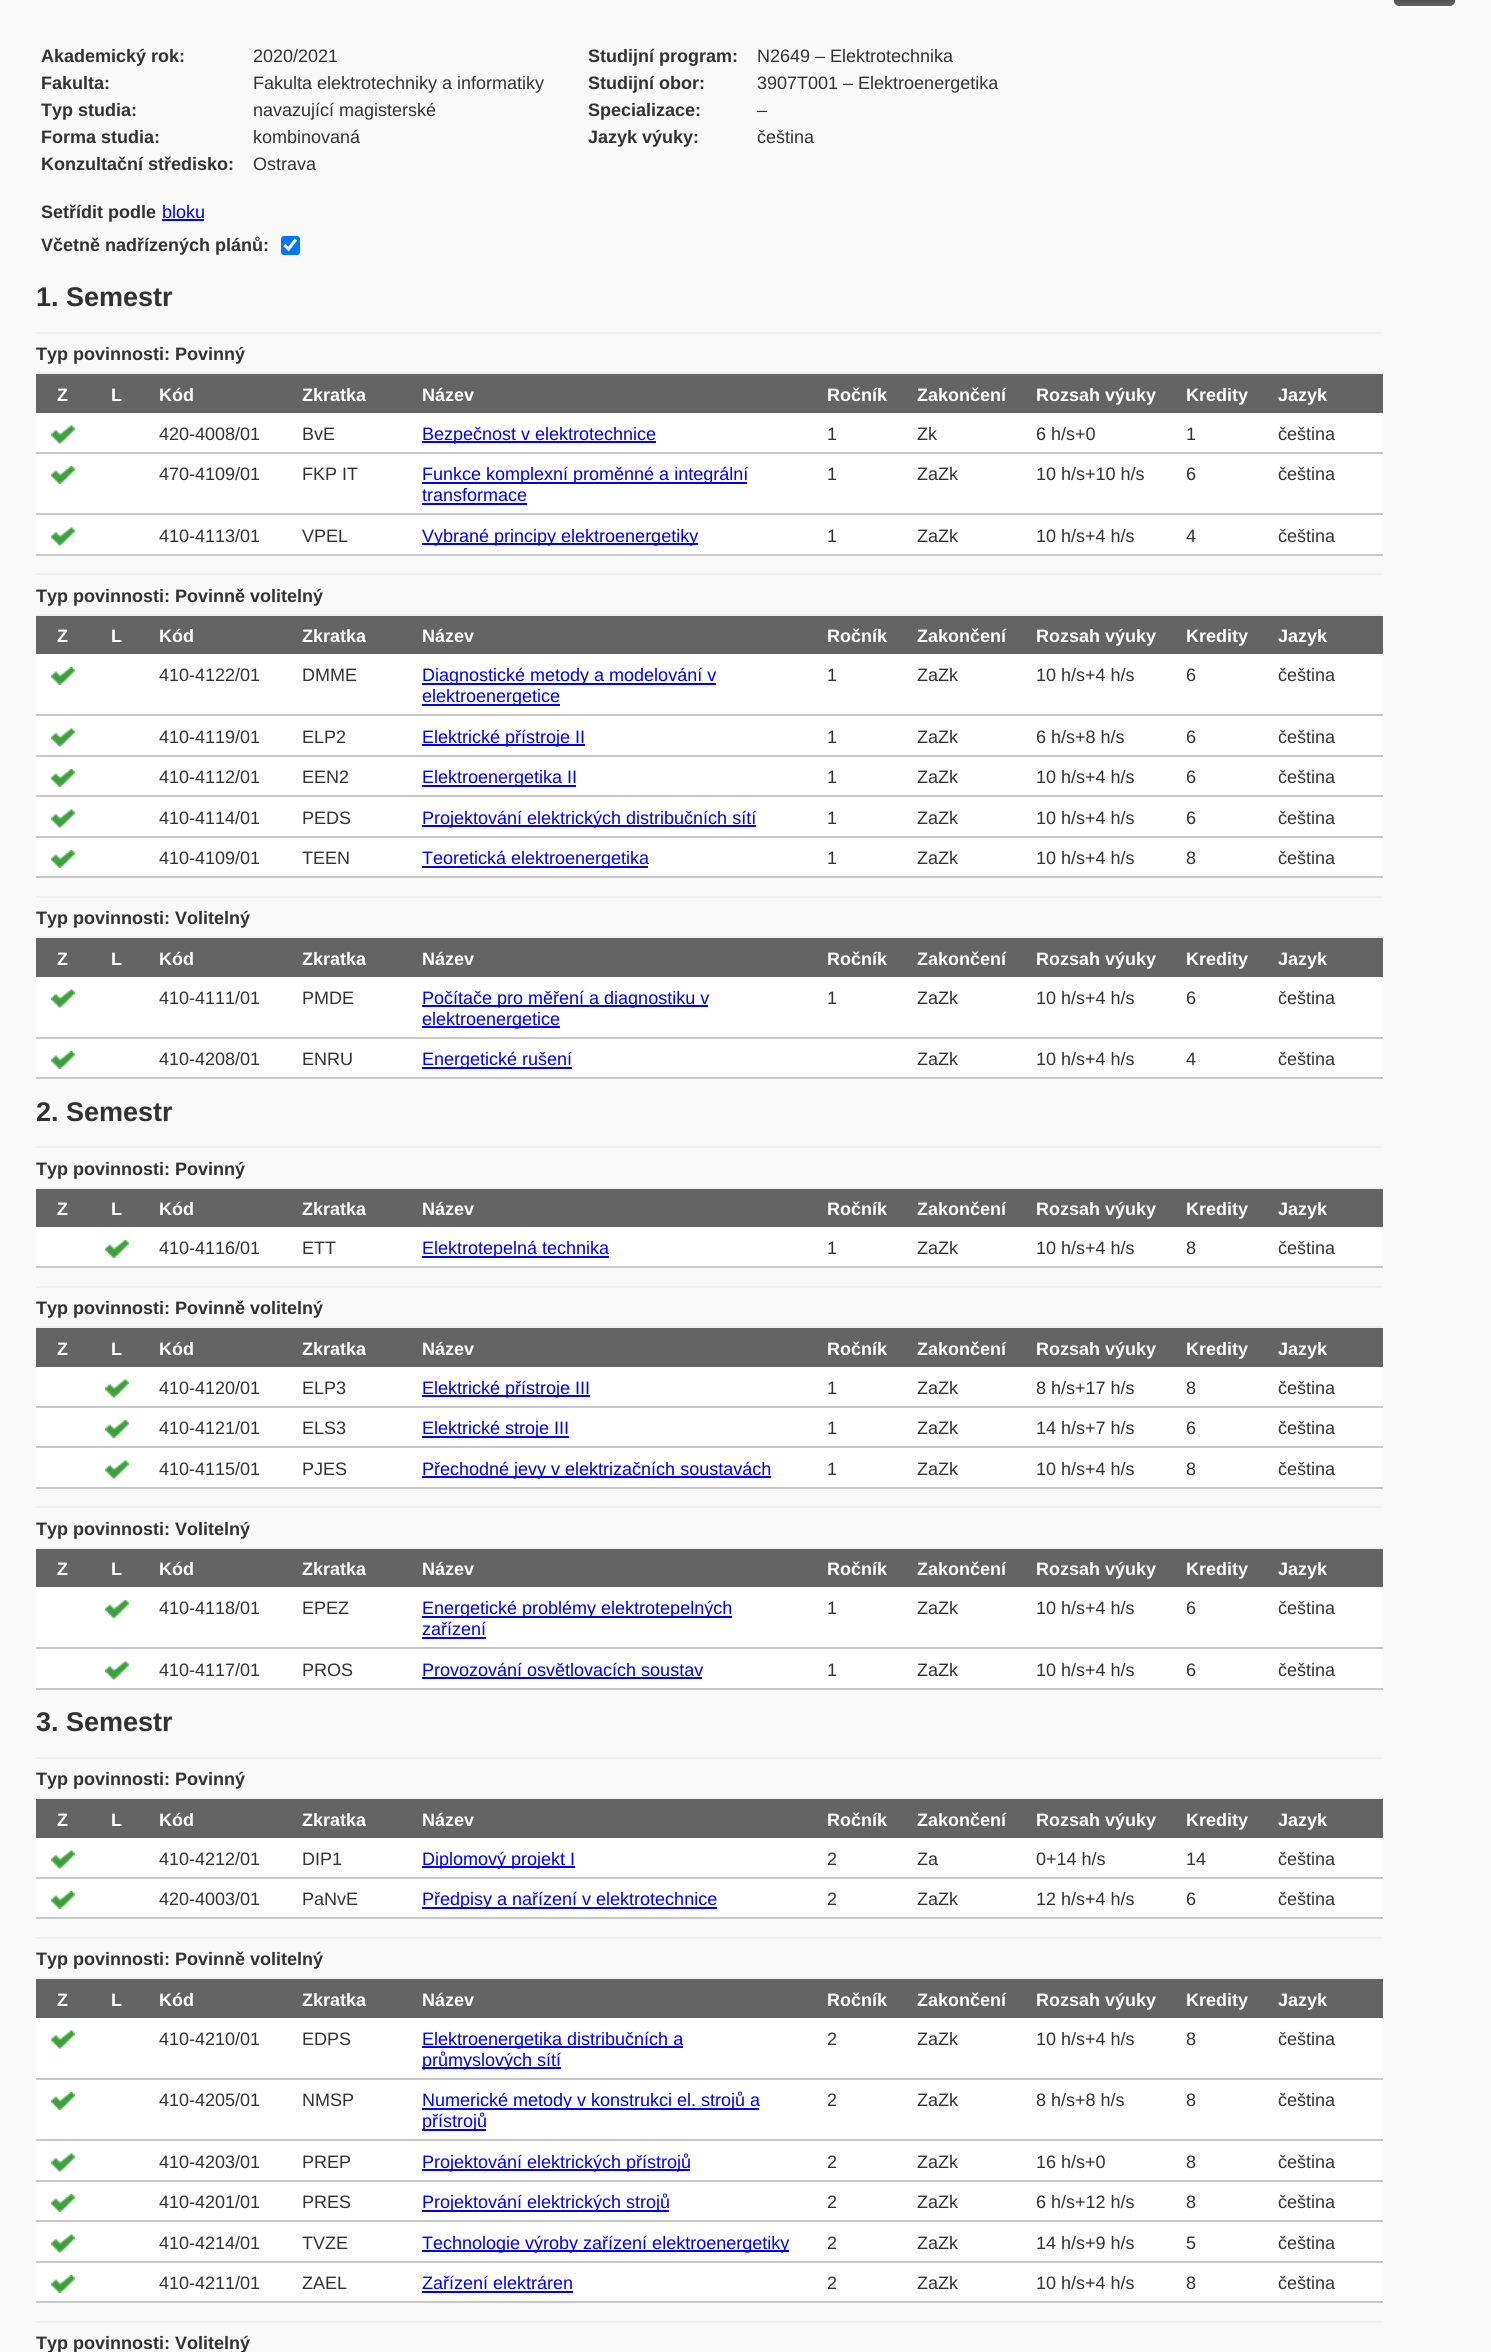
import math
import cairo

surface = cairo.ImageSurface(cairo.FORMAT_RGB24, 1491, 2352)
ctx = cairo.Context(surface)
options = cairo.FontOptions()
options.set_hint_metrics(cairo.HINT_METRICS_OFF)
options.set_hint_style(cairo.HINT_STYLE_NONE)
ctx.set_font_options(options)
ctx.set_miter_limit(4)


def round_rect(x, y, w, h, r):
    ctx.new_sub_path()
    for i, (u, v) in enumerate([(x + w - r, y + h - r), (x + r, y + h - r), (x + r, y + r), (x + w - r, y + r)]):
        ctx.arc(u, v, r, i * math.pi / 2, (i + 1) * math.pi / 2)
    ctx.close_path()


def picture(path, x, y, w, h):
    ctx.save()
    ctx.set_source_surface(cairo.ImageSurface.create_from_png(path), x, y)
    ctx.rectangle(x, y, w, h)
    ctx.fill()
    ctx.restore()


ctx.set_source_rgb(0.973, 0.973, 0.973)
ctx.paint()
ctx.set_source_rgb(1, 1, 1)
ctx.new_path()
ctx.move_to(1394, 4)
ctx.curve_to(1394, 6, 1396, 8, 1399, 8)
ctx.line_to(1450, 8)
ctx.curve_to(1453, 8, 1455, 6, 1455, 3)
ctx.line_to(1455, 2)
ctx.curve_to(1455, 4, 1453, 6, 1450, 6)
ctx.line_to(1398, 6)
ctx.curve_to(1396, 6, 1395, 5, 1394, 4)
ctx.close_path()
ctx.fill()
gradient = cairo.LinearGradient(1424, -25, 1424, 6)
gradient.add_color_stop_rgba(0, 0.588, 0.588, 0.588, 1)
gradient.add_color_stop_rgba(0.5, 0.196, 0.196, 0.196, 1)
gradient.add_color_stop_rgba(1, 0.392, 0.392, 0.392, 1)
ctx.set_source(gradient)
round_rect(1394, -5, 61, 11, 5)
ctx.fill()
ctx.select_font_face("Liberation Sans", cairo.FONT_SLANT_NORMAL, cairo.FONT_WEIGHT_BOLD)
ctx.set_font_size(18)
ctx.set_source_rgb(0.196, 0.196, 0.196)
ctx.move_to(41, 62)
ctx.show_text("Akademický rok:")
ctx.select_font_face("Liberation Sans")
ctx.move_to(253, 62)
ctx.show_text("2020/2021")
ctx.select_font_face("Liberation Sans", cairo.FONT_SLANT_NORMAL, cairo.FONT_WEIGHT_BOLD)
ctx.move_to(588, 62)
ctx.show_text("Studijní program:")
ctx.select_font_face("Liberation Sans")
ctx.move_to(757, 62)
ctx.show_text("N2649 – Elektrotechnika")
ctx.select_font_face("Liberation Sans", cairo.FONT_SLANT_NORMAL, cairo.FONT_WEIGHT_BOLD)
ctx.move_to(41, 89)
ctx.show_text("Fakulta:")
ctx.select_font_face("Liberation Sans")
ctx.move_to(253, 89)
ctx.show_text("Fakulta elektrotechniky a informatiky")
ctx.select_font_face("Liberation Sans", cairo.FONT_SLANT_NORMAL, cairo.FONT_WEIGHT_BOLD)
ctx.move_to(588, 89)
ctx.show_text("Studijní obor:")
ctx.select_font_face("Liberation Sans")
ctx.move_to(757, 89)
ctx.show_text("3907T001 – Elektroenergetika")
ctx.select_font_face("Liberation Sans", cairo.FONT_SLANT_NORMAL, cairo.FONT_WEIGHT_BOLD)
ctx.move_to(41, 116)
ctx.show_text("Typ studia:")
ctx.select_font_face("Liberation Sans")
ctx.move_to(253, 116)
ctx.show_text("navazující magisterské")
ctx.select_font_face("Liberation Sans", cairo.FONT_SLANT_NORMAL, cairo.FONT_WEIGHT_BOLD)
ctx.move_to(588, 116)
ctx.show_text("Specializace:")
ctx.select_font_face("Liberation Sans")
ctx.move_to(757, 116)
ctx.show_text("–")
ctx.select_font_face("Liberation Sans", cairo.FONT_SLANT_NORMAL, cairo.FONT_WEIGHT_BOLD)
ctx.move_to(41, 143)
ctx.show_text("Forma studia:")
ctx.select_font_face("Liberation Sans")
ctx.move_to(253, 143)
ctx.show_text("kombinovaná")
ctx.select_font_face("Liberation Sans", cairo.FONT_SLANT_NORMAL, cairo.FONT_WEIGHT_BOLD)
ctx.move_to(588, 143)
ctx.show_text("Jazyk výuky:")
ctx.select_font_face("Liberation Sans")
ctx.move_to(757, 143)
ctx.show_text("čeština")
ctx.select_font_face("Liberation Sans", cairo.FONT_SLANT_NORMAL, cairo.FONT_WEIGHT_BOLD)
ctx.move_to(41, 170)
ctx.show_text("Konzultační středisko:")
ctx.select_font_face("Liberation Sans")
ctx.move_to(253, 170)
ctx.show_text("Ostrava")
ctx.select_font_face("Liberation Sans", cairo.FONT_SLANT_NORMAL, cairo.FONT_WEIGHT_BOLD)
ctx.move_to(41, 218)
ctx.show_text("Setřídit podle")
ctx.select_font_face("Liberation Sans")
ctx.set_source_rgb(0, 0, 0.933)
ctx.move_to(162, 218)
ctx.show_text("bloku")
ctx.rectangle(162, 219, 42, 2)
ctx.fill()
ctx.select_font_face("Liberation Sans", cairo.FONT_SLANT_NORMAL, cairo.FONT_WEIGHT_BOLD)
ctx.set_source_rgb(0.196, 0.196, 0.196)
ctx.move_to(41, 251)
ctx.show_text("Včetně nadřízených plánů:")
ctx.set_source_rgb(0, 0.459, 1)
round_rect(281, 236, 19, 19, 3)
ctx.fill()
ctx.new_path()
ctx.move_to(284.5, 245)
ctx.line_to(288.5, 249)
ctx.line_to(296, 239.5)
ctx.set_source_rgb(1, 1, 1)
ctx.set_line_width(3.1)
ctx.stroke()
ctx.set_font_size(27)
ctx.set_source_rgb(0.196, 0.196, 0.196)
ctx.move_to(36, 306)
ctx.show_text("1. Semestr")
ctx.set_source_rgb(0.941, 0.941, 0.941)
ctx.rectangle(36, 332, 1347, 2)
ctx.fill()
ctx.set_font_size(18)
ctx.set_source_rgb(0.196, 0.196, 0.196)
ctx.move_to(36, 360)
ctx.show_text("Typ povinnosti: Povinný")
ctx.set_source_rgb(0.941, 0.941, 0.941)
ctx.rectangle(36, 372, 1347, 2)
ctx.fill()
ctx.set_source_rgb(0.392, 0.392, 0.392)
ctx.rectangle(36, 374, 1347, 39)
ctx.fill()
ctx.set_source_rgb(1, 1, 1)
ctx.move_to(57, 401)
ctx.show_text("Z")
ctx.move_to(111, 401)
ctx.show_text("L")
ctx.move_to(159, 401)
ctx.show_text("Kód")
ctx.move_to(302, 401)
ctx.show_text("Zkratka")
ctx.move_to(422, 401)
ctx.show_text("Název")
ctx.move_to(827, 401)
ctx.show_text("Ročník")
ctx.move_to(917, 401)
ctx.show_text("Zakončení")
ctx.move_to(1036, 401)
ctx.show_text("Rozsah výuky")
ctx.move_to(1186, 401)
ctx.show_text("Kredity")
ctx.move_to(1278, 401)
ctx.show_text("Jazyk")
ctx.rectangle(36, 413, 1347, 39)
ctx.fill()
picture("img1.png", 51, 425, 24, 19)
ctx.select_font_face("Liberation Sans")
ctx.set_source_rgb(0.196, 0.196, 0.196)
ctx.move_to(159, 440)
ctx.show_text("420-4008/01")
ctx.move_to(302, 440)
ctx.show_text("BvE")
ctx.set_source_rgb(0, 0, 0.933)
ctx.rectangle(422, 441, 234, 2)
ctx.fill()
ctx.move_to(422, 440)
ctx.show_text("Bezpečnost v elektrotechnice")
ctx.set_source_rgb(0.196, 0.196, 0.196)
ctx.move_to(827, 440)
ctx.show_text("1")
ctx.move_to(917, 440)
ctx.show_text("Zk")
ctx.move_to(1036, 440)
ctx.show_text("6 h/s+0")
ctx.move_to(1186, 440)
ctx.show_text("1")
ctx.set_source_rgb(0.784, 0.784, 0.784)
ctx.rectangle(36, 452, 1347, 2)
ctx.fill()
ctx.set_source_rgb(0.196, 0.196, 0.196)
ctx.move_to(1278, 440)
ctx.show_text("čeština")
ctx.set_source_rgb(1, 1, 1)
ctx.rectangle(36, 454, 1347, 59)
ctx.fill()
picture("img2.png", 51, 466, 24, 18)
ctx.set_source_rgb(0.196, 0.196, 0.196)
ctx.move_to(159, 480)
ctx.show_text("470-4109/01")
ctx.move_to(302, 480)
ctx.show_text("FKP IT")
ctx.set_source_rgb(0, 0, 0.933)
ctx.rectangle(422, 482, 325, 2)
ctx.fill()
ctx.move_to(422, 480)
ctx.show_text("Funkce komplexní proměnné a integrální")
ctx.move_to(422, 501)
ctx.show_text("transformace")
ctx.rectangle(422, 503, 105, 2)
ctx.fill()
ctx.set_source_rgb(0.196, 0.196, 0.196)
ctx.move_to(827, 480)
ctx.show_text("1")
ctx.move_to(917, 480)
ctx.show_text("ZaZk")
ctx.move_to(1036, 480)
ctx.show_text("10 h/s+10 h/s")
ctx.move_to(1186, 480)
ctx.show_text("6")
ctx.set_source_rgb(0.784, 0.784, 0.784)
ctx.rectangle(36, 513, 1347, 2)
ctx.fill()
ctx.set_source_rgb(0.196, 0.196, 0.196)
ctx.move_to(1278, 480)
ctx.show_text("čeština")
ctx.set_source_rgb(1, 1, 1)
ctx.rectangle(36, 515, 1347, 39)
ctx.fill()
picture("img1.png", 51, 527, 24, 19)
ctx.set_source_rgb(0.196, 0.196, 0.196)
ctx.move_to(159, 542)
ctx.show_text("410-4113/01")
ctx.move_to(302, 542)
ctx.show_text("VPEL")
ctx.set_source_rgb(0, 0, 0.933)
ctx.rectangle(422, 543, 276, 2)
ctx.fill()
ctx.move_to(422, 542)
ctx.show_text("Vybrané principy elektroenergetiky")
ctx.set_source_rgb(0.196, 0.196, 0.196)
ctx.move_to(827, 542)
ctx.show_text("1")
ctx.move_to(917, 542)
ctx.show_text("ZaZk")
ctx.move_to(1036, 542)
ctx.show_text("10 h/s+4 h/s")
ctx.move_to(1186, 542)
ctx.show_text("4")
ctx.set_source_rgb(0.784, 0.784, 0.784)
ctx.rectangle(36, 554, 1347, 2)
ctx.fill()
ctx.set_source_rgb(0.196, 0.196, 0.196)
ctx.move_to(1278, 542)
ctx.show_text("čeština")
ctx.set_source_rgb(0.941, 0.941, 0.941)
ctx.rectangle(36, 573, 1347, 2)
ctx.fill()
ctx.select_font_face("Liberation Sans", cairo.FONT_SLANT_NORMAL, cairo.FONT_WEIGHT_BOLD)
ctx.set_source_rgb(0.196, 0.196, 0.196)
ctx.move_to(36, 602)
ctx.show_text("Typ povinnosti: Povinně volitelný")
ctx.set_source_rgb(0.941, 0.941, 0.941)
ctx.rectangle(36, 614, 1347, 2)
ctx.fill()
ctx.set_source_rgb(0.392, 0.392, 0.392)
ctx.rectangle(36, 616, 1347, 38)
ctx.fill()
ctx.set_source_rgb(1, 1, 1)
ctx.move_to(57, 642)
ctx.show_text("Z")
ctx.move_to(111, 642)
ctx.show_text("L")
ctx.move_to(159, 642)
ctx.show_text("Kód")
ctx.move_to(302, 642)
ctx.show_text("Zkratka")
ctx.move_to(422, 642)
ctx.show_text("Název")
ctx.move_to(827, 642)
ctx.show_text("Ročník")
ctx.move_to(917, 642)
ctx.show_text("Zakončení")
ctx.move_to(1036, 642)
ctx.show_text("Rozsah výuky")
ctx.move_to(1186, 642)
ctx.show_text("Kredity")
ctx.move_to(1278, 642)
ctx.show_text("Jazyk")
ctx.rectangle(36, 654, 1347, 60)
ctx.fill()
picture("img2.png", 51, 667, 24, 18)
ctx.select_font_face("Liberation Sans")
ctx.set_source_rgb(0.196, 0.196, 0.196)
ctx.move_to(159, 681)
ctx.show_text("410-4122/01")
ctx.move_to(302, 681)
ctx.show_text("DMME")
ctx.set_source_rgb(0, 0, 0.933)
ctx.rectangle(422, 683, 294, 2)
ctx.fill()
ctx.move_to(422, 681)
ctx.show_text("Diagnostické metody a modelování v")
ctx.rectangle(422, 704, 138, 2)
ctx.fill()
ctx.move_to(422, 702)
ctx.show_text("elektroenergetice")
ctx.set_source_rgb(0.196, 0.196, 0.196)
ctx.move_to(827, 681)
ctx.show_text("1")
ctx.move_to(917, 681)
ctx.show_text("ZaZk")
ctx.move_to(1036, 681)
ctx.show_text("10 h/s+4 h/s")
ctx.move_to(1186, 681)
ctx.show_text("6")
ctx.set_source_rgb(0.784, 0.784, 0.784)
ctx.rectangle(36, 714, 1347, 2)
ctx.fill()
ctx.set_source_rgb(0.196, 0.196, 0.196)
ctx.move_to(1278, 681)
ctx.show_text("čeština")
ctx.set_source_rgb(1, 1, 1)
ctx.rectangle(36, 716, 1347, 39)
ctx.fill()
picture("img1.png", 51, 728, 24, 19)
ctx.set_source_rgb(0.196, 0.196, 0.196)
ctx.move_to(159, 743)
ctx.show_text("410-4119/01")
ctx.move_to(302, 743)
ctx.show_text("ELP2")
ctx.set_source_rgb(0, 0, 0.933)
ctx.rectangle(422, 744, 163, 2)
ctx.fill()
ctx.move_to(422, 743)
ctx.show_text("Elektrické přístroje II")
ctx.set_source_rgb(0.196, 0.196, 0.196)
ctx.move_to(827, 743)
ctx.show_text("1")
ctx.move_to(917, 743)
ctx.show_text("ZaZk")
ctx.move_to(1036, 743)
ctx.show_text("6 h/s+8 h/s")
ctx.move_to(1186, 743)
ctx.show_text("6")
ctx.set_source_rgb(0.784, 0.784, 0.784)
ctx.rectangle(36, 755, 1347, 2)
ctx.fill()
ctx.set_source_rgb(0.196, 0.196, 0.196)
ctx.move_to(1278, 743)
ctx.show_text("čeština")
ctx.set_source_rgb(1, 1, 1)
ctx.rectangle(36, 757, 1347, 38)
ctx.fill()
picture("img2.png", 51, 769, 24, 18)
ctx.set_source_rgb(0.196, 0.196, 0.196)
ctx.move_to(159, 783)
ctx.show_text("410-4112/01")
ctx.move_to(302, 783)
ctx.show_text("EEN2")
ctx.set_source_rgb(0, 0, 0.933)
ctx.rectangle(422, 785, 154, 2)
ctx.fill()
ctx.move_to(422, 783)
ctx.show_text("Elektroenergetika II")
ctx.set_source_rgb(0.196, 0.196, 0.196)
ctx.move_to(827, 783)
ctx.show_text("1")
ctx.move_to(917, 783)
ctx.show_text("ZaZk")
ctx.move_to(1036, 783)
ctx.show_text("10 h/s+4 h/s")
ctx.move_to(1186, 783)
ctx.show_text("6")
ctx.set_source_rgb(0.784, 0.784, 0.784)
ctx.rectangle(36, 795, 1347, 2)
ctx.fill()
ctx.set_source_rgb(0.196, 0.196, 0.196)
ctx.move_to(1278, 783)
ctx.show_text("čeština")
ctx.set_source_rgb(1, 1, 1)
ctx.rectangle(36, 797, 1347, 39)
ctx.fill()
picture("img1.png", 51, 809, 24, 19)
ctx.set_source_rgb(0.196, 0.196, 0.196)
ctx.move_to(159, 824)
ctx.show_text("410-4114/01")
ctx.move_to(302, 824)
ctx.show_text("PEDS")
ctx.set_source_rgb(0, 0, 0.933)
ctx.rectangle(422, 825, 334, 2)
ctx.fill()
ctx.move_to(422, 824)
ctx.show_text("Projektování elektrických distribučních sítí")
ctx.set_source_rgb(0.196, 0.196, 0.196)
ctx.move_to(827, 824)
ctx.show_text("1")
ctx.move_to(917, 824)
ctx.show_text("ZaZk")
ctx.move_to(1036, 824)
ctx.show_text("10 h/s+4 h/s")
ctx.move_to(1186, 824)
ctx.show_text("6")
ctx.set_source_rgb(0.784, 0.784, 0.784)
ctx.rectangle(36, 836, 1347, 2)
ctx.fill()
ctx.set_source_rgb(0.196, 0.196, 0.196)
ctx.move_to(1278, 824)
ctx.show_text("čeština")
ctx.set_source_rgb(1, 1, 1)
ctx.rectangle(36, 838, 1347, 38)
ctx.fill()
picture("img2.png", 51, 850, 24, 18)
ctx.set_source_rgb(0.196, 0.196, 0.196)
ctx.move_to(159, 864)
ctx.show_text("410-4109/01")
ctx.move_to(302, 864)
ctx.show_text("TEEN")
ctx.set_source_rgb(0, 0, 0.933)
ctx.rectangle(422, 866, 226, 2)
ctx.fill()
ctx.move_to(422, 864)
ctx.show_text("Teoretická elektroenergetika")
ctx.set_source_rgb(0.196, 0.196, 0.196)
ctx.move_to(827, 864)
ctx.show_text("1")
ctx.move_to(917, 864)
ctx.show_text("ZaZk")
ctx.move_to(1036, 864)
ctx.show_text("10 h/s+4 h/s")
ctx.move_to(1186, 864)
ctx.show_text("8")
ctx.set_source_rgb(0.784, 0.784, 0.784)
ctx.rectangle(36, 876, 1347, 2)
ctx.fill()
ctx.set_source_rgb(0.196, 0.196, 0.196)
ctx.move_to(1278, 864)
ctx.show_text("čeština")
ctx.set_source_rgb(0.941, 0.941, 0.941)
ctx.rectangle(36, 896, 1347, 2)
ctx.fill()
ctx.select_font_face("Liberation Sans", cairo.FONT_SLANT_NORMAL, cairo.FONT_WEIGHT_BOLD)
ctx.set_source_rgb(0.196, 0.196, 0.196)
ctx.move_to(36, 924)
ctx.show_text("Typ povinnosti: Volitelný")
ctx.set_source_rgb(0.941, 0.941, 0.941)
ctx.rectangle(36, 936, 1347, 2)
ctx.fill()
ctx.set_source_rgb(0.392, 0.392, 0.392)
ctx.rectangle(36, 938, 1347, 39)
ctx.fill()
ctx.set_source_rgb(1, 1, 1)
ctx.move_to(57, 965)
ctx.show_text("Z")
ctx.move_to(111, 965)
ctx.show_text("L")
ctx.move_to(159, 965)
ctx.show_text("Kód")
ctx.move_to(302, 965)
ctx.show_text("Zkratka")
ctx.move_to(422, 965)
ctx.show_text("Název")
ctx.move_to(827, 965)
ctx.show_text("Ročník")
ctx.move_to(917, 965)
ctx.show_text("Zakončení")
ctx.move_to(1036, 965)
ctx.show_text("Rozsah výuky")
ctx.move_to(1186, 965)
ctx.show_text("Kredity")
ctx.move_to(1278, 965)
ctx.show_text("Jazyk")
ctx.rectangle(36, 977, 1347, 60)
ctx.fill()
picture("img1.png", 51, 989, 24, 19)
ctx.select_font_face("Liberation Sans")
ctx.set_source_rgb(0.196, 0.196, 0.196)
ctx.move_to(159, 1004)
ctx.show_text("410-4111/01")
ctx.move_to(302, 1004)
ctx.show_text("PMDE")
ctx.set_source_rgb(0, 0, 0.933)
ctx.rectangle(422, 1005, 286, 2)
ctx.fill()
ctx.move_to(422, 1004)
ctx.show_text("Počítače pro měření a diagnostiku v")
ctx.rectangle(422, 1026, 138, 2)
ctx.fill()
ctx.move_to(422, 1025)
ctx.show_text("elektroenergetice")
ctx.set_source_rgb(0.196, 0.196, 0.196)
ctx.move_to(827, 1004)
ctx.show_text("1")
ctx.move_to(917, 1004)
ctx.show_text("ZaZk")
ctx.move_to(1036, 1004)
ctx.show_text("10 h/s+4 h/s")
ctx.move_to(1186, 1004)
ctx.show_text("6")
ctx.set_source_rgb(0.784, 0.784, 0.784)
ctx.rectangle(36, 1037, 1347, 2)
ctx.fill()
ctx.set_source_rgb(0.196, 0.196, 0.196)
ctx.move_to(1278, 1004)
ctx.show_text("čeština")
ctx.set_source_rgb(1, 1, 1)
ctx.rectangle(36, 1039, 1347, 38)
ctx.fill()
picture("img2.png", 51, 1051, 24, 18)
ctx.set_source_rgb(0.196, 0.196, 0.196)
ctx.move_to(159, 1065)
ctx.show_text("410-4208/01")
ctx.move_to(302, 1065)
ctx.show_text("ENRU")
ctx.set_source_rgb(0, 0, 0.933)
ctx.rectangle(422, 1067, 150, 2)
ctx.fill()
ctx.move_to(422, 1065)
ctx.show_text("Energetické rušení")
ctx.set_source_rgb(0.196, 0.196, 0.196)
ctx.move_to(917, 1065)
ctx.show_text("ZaZk")
ctx.move_to(1036, 1065)
ctx.show_text("10 h/s+4 h/s")
ctx.move_to(1186, 1065)
ctx.show_text("4")
ctx.set_source_rgb(0.784, 0.784, 0.784)
ctx.rectangle(36, 1077, 1347, 2)
ctx.fill()
ctx.set_source_rgb(0.196, 0.196, 0.196)
ctx.move_to(1278, 1065)
ctx.show_text("čeština")
ctx.select_font_face("Liberation Sans", cairo.FONT_SLANT_NORMAL, cairo.FONT_WEIGHT_BOLD)
ctx.set_font_size(27)
ctx.move_to(36, 1121)
ctx.show_text("2. Semestr")
ctx.set_source_rgb(0.941, 0.941, 0.941)
ctx.rectangle(36, 1146, 1347, 2)
ctx.fill()
ctx.set_font_size(18)
ctx.set_source_rgb(0.196, 0.196, 0.196)
ctx.move_to(36, 1175)
ctx.show_text("Typ povinnosti: Povinný")
ctx.set_source_rgb(0.941, 0.941, 0.941)
ctx.rectangle(36, 1187, 1347, 2)
ctx.fill()
ctx.set_source_rgb(0.392, 0.392, 0.392)
ctx.rectangle(36, 1189, 1347, 38)
ctx.fill()
ctx.set_source_rgb(1, 1, 1)
ctx.move_to(57, 1215)
ctx.show_text("Z")
ctx.move_to(111, 1215)
ctx.show_text("L")
ctx.move_to(159, 1215)
ctx.show_text("Kód")
ctx.move_to(302, 1215)
ctx.show_text("Zkratka")
ctx.move_to(422, 1215)
ctx.show_text("Název")
ctx.move_to(827, 1215)
ctx.show_text("Ročník")
ctx.move_to(917, 1215)
ctx.show_text("Zakončení")
ctx.move_to(1036, 1215)
ctx.show_text("Rozsah výuky")
ctx.move_to(1186, 1215)
ctx.show_text("Kredity")
ctx.move_to(1278, 1215)
ctx.show_text("Jazyk")
ctx.rectangle(36, 1227, 1347, 39)
ctx.fill()
picture("img2.png", 105, 1240, 24, 18)
ctx.select_font_face("Liberation Sans")
ctx.set_source_rgb(0.196, 0.196, 0.196)
ctx.move_to(159, 1254)
ctx.show_text("410-4116/01")
ctx.move_to(302, 1254)
ctx.show_text("ETT")
ctx.set_source_rgb(0, 0, 0.933)
ctx.rectangle(422, 1256, 187, 2)
ctx.fill()
ctx.move_to(422, 1254)
ctx.show_text("Elektrotepelná technika")
ctx.set_source_rgb(0.196, 0.196, 0.196)
ctx.move_to(827, 1254)
ctx.show_text("1")
ctx.move_to(917, 1254)
ctx.show_text("ZaZk")
ctx.move_to(1036, 1254)
ctx.show_text("10 h/s+4 h/s")
ctx.move_to(1186, 1254)
ctx.show_text("8")
ctx.set_source_rgb(0.784, 0.784, 0.784)
ctx.rectangle(36, 1266, 1347, 2)
ctx.fill()
ctx.set_source_rgb(0.196, 0.196, 0.196)
ctx.move_to(1278, 1254)
ctx.show_text("čeština")
ctx.set_source_rgb(0.941, 0.941, 0.941)
ctx.rectangle(36, 1286, 1347, 2)
ctx.fill()
ctx.select_font_face("Liberation Sans", cairo.FONT_SLANT_NORMAL, cairo.FONT_WEIGHT_BOLD)
ctx.set_source_rgb(0.196, 0.196, 0.196)
ctx.move_to(36, 1314)
ctx.show_text("Typ povinnosti: Povinně volitelný")
ctx.set_source_rgb(0.941, 0.941, 0.941)
ctx.rectangle(36, 1326, 1347, 2)
ctx.fill()
ctx.set_source_rgb(0.392, 0.392, 0.392)
ctx.rectangle(36, 1328, 1347, 39)
ctx.fill()
ctx.set_source_rgb(1, 1, 1)
ctx.move_to(57, 1355)
ctx.show_text("Z")
ctx.move_to(111, 1355)
ctx.show_text("L")
ctx.move_to(159, 1355)
ctx.show_text("Kód")
ctx.move_to(302, 1355)
ctx.show_text("Zkratka")
ctx.move_to(422, 1355)
ctx.show_text("Název")
ctx.move_to(827, 1355)
ctx.show_text("Ročník")
ctx.move_to(917, 1355)
ctx.show_text("Zakončení")
ctx.move_to(1036, 1355)
ctx.show_text("Rozsah výuky")
ctx.move_to(1186, 1355)
ctx.show_text("Kredity")
ctx.move_to(1278, 1355)
ctx.show_text("Jazyk")
ctx.rectangle(36, 1367, 1347, 39)
ctx.fill()
picture("img1.png", 105, 1379, 24, 19)
ctx.select_font_face("Liberation Sans")
ctx.set_source_rgb(0.196, 0.196, 0.196)
ctx.move_to(159, 1394)
ctx.show_text("410-4120/01")
ctx.move_to(302, 1394)
ctx.show_text("ELP3")
ctx.set_source_rgb(0, 0, 0.933)
ctx.rectangle(422, 1395, 168, 2)
ctx.fill()
ctx.move_to(422, 1394)
ctx.show_text("Elektrické přístroje III")
ctx.set_source_rgb(0.196, 0.196, 0.196)
ctx.move_to(827, 1394)
ctx.show_text("1")
ctx.move_to(917, 1394)
ctx.show_text("ZaZk")
ctx.move_to(1036, 1394)
ctx.show_text("8 h/s+17 h/s")
ctx.move_to(1186, 1394)
ctx.show_text("8")
ctx.set_source_rgb(0.784, 0.784, 0.784)
ctx.rectangle(36, 1406, 1347, 2)
ctx.fill()
ctx.set_source_rgb(0.196, 0.196, 0.196)
ctx.move_to(1278, 1394)
ctx.show_text("čeština")
ctx.set_source_rgb(1, 1, 1)
ctx.rectangle(36, 1408, 1347, 38)
ctx.fill()
picture("img2.png", 105, 1420, 24, 18)
ctx.set_source_rgb(0.196, 0.196, 0.196)
ctx.move_to(159, 1434)
ctx.show_text("410-4121/01")
ctx.move_to(302, 1434)
ctx.show_text("ELS3")
ctx.set_source_rgb(0, 0, 0.933)
ctx.rectangle(422, 1436, 147, 2)
ctx.fill()
ctx.move_to(422, 1434)
ctx.show_text("Elektrické stroje III")
ctx.set_source_rgb(0.196, 0.196, 0.196)
ctx.move_to(827, 1434)
ctx.show_text("1")
ctx.move_to(917, 1434)
ctx.show_text("ZaZk")
ctx.move_to(1036, 1434)
ctx.show_text("14 h/s+7 h/s")
ctx.move_to(1186, 1434)
ctx.show_text("6")
ctx.set_source_rgb(0.784, 0.784, 0.784)
ctx.rectangle(36, 1446, 1347, 2)
ctx.fill()
ctx.set_source_rgb(0.196, 0.196, 0.196)
ctx.move_to(1278, 1434)
ctx.show_text("čeština")
ctx.set_source_rgb(1, 1, 1)
ctx.rectangle(36, 1448, 1347, 39)
ctx.fill()
picture("img1.png", 105, 1460, 24, 19)
ctx.set_source_rgb(0.196, 0.196, 0.196)
ctx.move_to(159, 1475)
ctx.show_text("410-4115/01")
ctx.move_to(302, 1475)
ctx.show_text("PJES")
ctx.set_source_rgb(0, 0, 0.933)
ctx.rectangle(422, 1476, 349, 2)
ctx.fill()
ctx.move_to(422, 1475)
ctx.show_text("Přechodné jevy v elektrizačních soustavách")
ctx.set_source_rgb(0.196, 0.196, 0.196)
ctx.move_to(827, 1475)
ctx.show_text("1")
ctx.move_to(917, 1475)
ctx.show_text("ZaZk")
ctx.move_to(1036, 1475)
ctx.show_text("10 h/s+4 h/s")
ctx.move_to(1186, 1475)
ctx.show_text("8")
ctx.set_source_rgb(0.784, 0.784, 0.784)
ctx.rectangle(36, 1487, 1347, 2)
ctx.fill()
ctx.set_source_rgb(0.196, 0.196, 0.196)
ctx.move_to(1278, 1475)
ctx.show_text("čeština")
ctx.set_source_rgb(0.941, 0.941, 0.941)
ctx.rectangle(36, 1506, 1347, 2)
ctx.fill()
ctx.select_font_face("Liberation Sans", cairo.FONT_SLANT_NORMAL, cairo.FONT_WEIGHT_BOLD)
ctx.set_source_rgb(0.196, 0.196, 0.196)
ctx.move_to(36, 1535)
ctx.show_text("Typ povinnosti: Volitelný")
ctx.set_source_rgb(0.941, 0.941, 0.941)
ctx.rectangle(36, 1547, 1347, 2)
ctx.fill()
ctx.set_source_rgb(0.392, 0.392, 0.392)
ctx.rectangle(36, 1549, 1347, 38)
ctx.fill()
ctx.set_source_rgb(1, 1, 1)
ctx.move_to(57, 1575)
ctx.show_text("Z")
ctx.move_to(111, 1575)
ctx.show_text("L")
ctx.move_to(159, 1575)
ctx.show_text("Kód")
ctx.move_to(302, 1575)
ctx.show_text("Zkratka")
ctx.move_to(422, 1575)
ctx.show_text("Název")
ctx.move_to(827, 1575)
ctx.show_text("Ročník")
ctx.move_to(917, 1575)
ctx.show_text("Zakončení")
ctx.move_to(1036, 1575)
ctx.show_text("Rozsah výuky")
ctx.move_to(1186, 1575)
ctx.show_text("Kredity")
ctx.move_to(1278, 1575)
ctx.show_text("Jazyk")
ctx.rectangle(36, 1587, 1347, 60)
ctx.fill()
picture("img2.png", 105, 1600, 24, 18)
ctx.select_font_face("Liberation Sans")
ctx.set_source_rgb(0.196, 0.196, 0.196)
ctx.move_to(159, 1614)
ctx.show_text("410-4118/01")
ctx.move_to(302, 1614)
ctx.show_text("EPEZ")
ctx.set_source_rgb(0, 0, 0.933)
ctx.rectangle(422, 1616, 310, 2)
ctx.fill()
ctx.move_to(422, 1614)
ctx.show_text("Energetické problémy elektrotepelných")
ctx.move_to(422, 1635)
ctx.show_text("zařízení")
ctx.rectangle(422, 1637, 64, 2)
ctx.fill()
ctx.set_source_rgb(0.196, 0.196, 0.196)
ctx.move_to(827, 1614)
ctx.show_text("1")
ctx.move_to(917, 1614)
ctx.show_text("ZaZk")
ctx.move_to(1036, 1614)
ctx.show_text("10 h/s+4 h/s")
ctx.move_to(1186, 1614)
ctx.show_text("6")
ctx.set_source_rgb(0.784, 0.784, 0.784)
ctx.rectangle(36, 1647, 1347, 2)
ctx.fill()
ctx.set_source_rgb(0.196, 0.196, 0.196)
ctx.move_to(1278, 1614)
ctx.show_text("čeština")
ctx.set_source_rgb(1, 1, 1)
ctx.rectangle(36, 1649, 1347, 39)
ctx.fill()
picture("img1.png", 105, 1661, 24, 19)
ctx.set_source_rgb(0.196, 0.196, 0.196)
ctx.move_to(159, 1676)
ctx.show_text("410-4117/01")
ctx.move_to(302, 1676)
ctx.show_text("PROS")
ctx.set_source_rgb(0, 0, 0.933)
ctx.move_to(422, 1676)
ctx.show_text("Provozování osvětlovacích soustav")
ctx.rectangle(422, 1677, 280, 2)
ctx.fill()
ctx.set_source_rgb(0.196, 0.196, 0.196)
ctx.move_to(827, 1676)
ctx.show_text("1")
ctx.move_to(917, 1676)
ctx.show_text("ZaZk")
ctx.move_to(1036, 1676)
ctx.show_text("10 h/s+4 h/s")
ctx.move_to(1186, 1676)
ctx.show_text("6")
ctx.set_source_rgb(0.784, 0.784, 0.784)
ctx.rectangle(36, 1688, 1347, 2)
ctx.fill()
ctx.set_source_rgb(0.196, 0.196, 0.196)
ctx.move_to(1278, 1676)
ctx.show_text("čeština")
ctx.select_font_face("Liberation Sans", cairo.FONT_SLANT_NORMAL, cairo.FONT_WEIGHT_BOLD)
ctx.set_font_size(27)
ctx.move_to(36, 1731)
ctx.show_text("3. Semestr")
ctx.set_source_rgb(0.941, 0.941, 0.941)
ctx.rectangle(36, 1757, 1347, 2)
ctx.fill()
ctx.set_font_size(18)
ctx.set_source_rgb(0.196, 0.196, 0.196)
ctx.move_to(36, 1785)
ctx.show_text("Typ povinnosti: Povinný")
ctx.set_source_rgb(0.941, 0.941, 0.941)
ctx.rectangle(36, 1797, 1347, 2)
ctx.fill()
ctx.set_source_rgb(0.392, 0.392, 0.392)
ctx.rectangle(36, 1799, 1347, 39)
ctx.fill()
ctx.set_source_rgb(1, 1, 1)
ctx.move_to(57, 1826)
ctx.show_text("Z")
ctx.move_to(111, 1826)
ctx.show_text("L")
ctx.move_to(159, 1826)
ctx.show_text("Kód")
ctx.move_to(302, 1826)
ctx.show_text("Zkratka")
ctx.move_to(422, 1826)
ctx.show_text("Název")
ctx.move_to(827, 1826)
ctx.show_text("Ročník")
ctx.move_to(917, 1826)
ctx.show_text("Zakončení")
ctx.move_to(1036, 1826)
ctx.show_text("Rozsah výuky")
ctx.move_to(1186, 1826)
ctx.show_text("Kredity")
ctx.move_to(1278, 1826)
ctx.show_text("Jazyk")
ctx.rectangle(36, 1838, 1347, 39)
ctx.fill()
picture("img1.png", 51, 1850, 24, 19)
ctx.select_font_face("Liberation Sans")
ctx.set_source_rgb(0.196, 0.196, 0.196)
ctx.move_to(159, 1865)
ctx.show_text("410-4212/01")
ctx.move_to(302, 1865)
ctx.show_text("DIP1")
ctx.set_source_rgb(0, 0, 0.933)
ctx.rectangle(422, 1866, 153, 2)
ctx.fill()
ctx.move_to(422, 1865)
ctx.show_text("Diplomový projekt I")
ctx.set_source_rgb(0.196, 0.196, 0.196)
ctx.move_to(827, 1865)
ctx.show_text("2")
ctx.move_to(917, 1865)
ctx.show_text("Za")
ctx.move_to(1036, 1865)
ctx.show_text("0+14 h/s")
ctx.move_to(1186, 1865)
ctx.show_text("14")
ctx.set_source_rgb(0.784, 0.784, 0.784)
ctx.rectangle(36, 1877, 1347, 2)
ctx.fill()
ctx.set_source_rgb(0.196, 0.196, 0.196)
ctx.move_to(1278, 1865)
ctx.show_text("čeština")
ctx.set_source_rgb(1, 1, 1)
ctx.rectangle(36, 1879, 1347, 38)
ctx.fill()
picture("img2.png", 51, 1891, 24, 18)
ctx.set_source_rgb(0.196, 0.196, 0.196)
ctx.move_to(159, 1905)
ctx.show_text("420-4003/01")
ctx.move_to(302, 1905)
ctx.show_text("PaNvE")
ctx.set_source_rgb(0, 0, 0.933)
ctx.rectangle(422, 1907, 295, 2)
ctx.fill()
ctx.move_to(422, 1905)
ctx.show_text("Předpisy a nařízení v elektrotechnice")
ctx.set_source_rgb(0.196, 0.196, 0.196)
ctx.move_to(827, 1905)
ctx.show_text("2")
ctx.move_to(917, 1905)
ctx.show_text("ZaZk")
ctx.move_to(1036, 1905)
ctx.show_text("12 h/s+4 h/s")
ctx.move_to(1186, 1905)
ctx.show_text("6")
ctx.set_source_rgb(0.784, 0.784, 0.784)
ctx.rectangle(36, 1917, 1347, 2)
ctx.fill()
ctx.set_source_rgb(0.196, 0.196, 0.196)
ctx.move_to(1278, 1905)
ctx.show_text("čeština")
ctx.set_source_rgb(0.941, 0.941, 0.941)
ctx.rectangle(36, 1937, 1347, 2)
ctx.fill()
ctx.select_font_face("Liberation Sans", cairo.FONT_SLANT_NORMAL, cairo.FONT_WEIGHT_BOLD)
ctx.set_source_rgb(0.196, 0.196, 0.196)
ctx.move_to(36, 1965)
ctx.show_text("Typ povinnosti: Povinně volitelný")
ctx.set_source_rgb(0.941, 0.941, 0.941)
ctx.rectangle(36, 1977, 1347, 2)
ctx.fill()
ctx.set_source_rgb(0.392, 0.392, 0.392)
ctx.rectangle(36, 1979, 1347, 39)
ctx.fill()
ctx.set_source_rgb(1, 1, 1)
ctx.move_to(57, 2006)
ctx.show_text("Z")
ctx.move_to(111, 2006)
ctx.show_text("L")
ctx.move_to(159, 2006)
ctx.show_text("Kód")
ctx.move_to(302, 2006)
ctx.show_text("Zkratka")
ctx.move_to(422, 2006)
ctx.show_text("Název")
ctx.move_to(827, 2006)
ctx.show_text("Ročník")
ctx.move_to(917, 2006)
ctx.show_text("Zakončení")
ctx.move_to(1036, 2006)
ctx.show_text("Rozsah výuky")
ctx.move_to(1186, 2006)
ctx.show_text("Kredity")
ctx.move_to(1278, 2006)
ctx.show_text("Jazyk")
ctx.rectangle(36, 2018, 1347, 60)
ctx.fill()
picture("img1.png", 51, 2030, 24, 19)
ctx.select_font_face("Liberation Sans")
ctx.set_source_rgb(0.196, 0.196, 0.196)
ctx.move_to(159, 2045)
ctx.show_text("410-4210/01")
ctx.move_to(302, 2045)
ctx.show_text("EDPS")
ctx.set_source_rgb(0, 0, 0.933)
ctx.rectangle(422, 2046, 261, 2)
ctx.fill()
ctx.move_to(422, 2045)
ctx.show_text("Elektroenergetika distribučních a")
ctx.rectangle(422, 2067, 139, 2)
ctx.fill()
ctx.move_to(422, 2066)
ctx.show_text("průmyslových sítí")
ctx.set_source_rgb(0.196, 0.196, 0.196)
ctx.move_to(827, 2045)
ctx.show_text("2")
ctx.move_to(917, 2045)
ctx.show_text("ZaZk")
ctx.move_to(1036, 2045)
ctx.show_text("10 h/s+4 h/s")
ctx.move_to(1186, 2045)
ctx.show_text("8")
ctx.set_source_rgb(0.784, 0.784, 0.784)
ctx.rectangle(36, 2078, 1347, 2)
ctx.fill()
ctx.set_source_rgb(0.196, 0.196, 0.196)
ctx.move_to(1278, 2045)
ctx.show_text("čeština")
ctx.set_source_rgb(1, 1, 1)
ctx.rectangle(36, 2080, 1347, 59)
ctx.fill()
picture("img2.png", 51, 2092, 24, 18)
ctx.set_source_rgb(0.196, 0.196, 0.196)
ctx.move_to(159, 2106)
ctx.show_text("410-4205/01")
ctx.move_to(302, 2106)
ctx.show_text("NMSP")
ctx.set_source_rgb(0, 0, 0.933)
ctx.rectangle(422, 2108, 337, 2)
ctx.fill()
ctx.move_to(422, 2106)
ctx.show_text("Numerické metody v konstrukci el. strojů a")
ctx.rectangle(422, 2129, 64, 2)
ctx.fill()
ctx.move_to(422, 2127)
ctx.show_text("přístrojů")
ctx.set_source_rgb(0.196, 0.196, 0.196)
ctx.move_to(827, 2106)
ctx.show_text("2")
ctx.move_to(917, 2106)
ctx.show_text("ZaZk")
ctx.move_to(1036, 2106)
ctx.show_text("8 h/s+8 h/s")
ctx.move_to(1186, 2106)
ctx.show_text("8")
ctx.set_source_rgb(0.784, 0.784, 0.784)
ctx.rectangle(36, 2139, 1347, 2)
ctx.fill()
ctx.set_source_rgb(0.196, 0.196, 0.196)
ctx.move_to(1278, 2106)
ctx.show_text("čeština")
ctx.set_source_rgb(1, 1, 1)
ctx.rectangle(36, 2141, 1347, 39)
ctx.fill()
picture("img1.png", 51, 2153, 24, 19)
ctx.set_source_rgb(0.196, 0.196, 0.196)
ctx.move_to(159, 2168)
ctx.show_text("410-4203/01")
ctx.move_to(302, 2168)
ctx.show_text("PREP")
ctx.set_source_rgb(0, 0, 0.933)
ctx.rectangle(422, 2169, 268, 2)
ctx.fill()
ctx.move_to(422, 2168)
ctx.show_text("Projektování elektrických přístrojů")
ctx.set_source_rgb(0.196, 0.196, 0.196)
ctx.move_to(827, 2168)
ctx.show_text("2")
ctx.move_to(917, 2168)
ctx.show_text("ZaZk")
ctx.move_to(1036, 2168)
ctx.show_text("16 h/s+0")
ctx.move_to(1186, 2168)
ctx.show_text("8")
ctx.set_source_rgb(0.784, 0.784, 0.784)
ctx.rectangle(36, 2180, 1347, 2)
ctx.fill()
ctx.set_source_rgb(0.196, 0.196, 0.196)
ctx.move_to(1278, 2168)
ctx.show_text("čeština")
ctx.set_source_rgb(1, 1, 1)
ctx.rectangle(36, 2182, 1347, 38)
ctx.fill()
picture("img2.png", 51, 2194, 24, 18)
ctx.set_source_rgb(0.196, 0.196, 0.196)
ctx.move_to(159, 2208)
ctx.show_text("410-4201/01")
ctx.move_to(302, 2208)
ctx.show_text("PRES")
ctx.set_source_rgb(0, 0, 0.933)
ctx.rectangle(422, 2210, 247, 2)
ctx.fill()
ctx.move_to(422, 2208)
ctx.show_text("Projektování elektrických strojů")
ctx.set_source_rgb(0.196, 0.196, 0.196)
ctx.move_to(827, 2208)
ctx.show_text("2")
ctx.move_to(917, 2208)
ctx.show_text("ZaZk")
ctx.move_to(1036, 2208)
ctx.show_text("6 h/s+12 h/s")
ctx.move_to(1186, 2208)
ctx.show_text("8")
ctx.set_source_rgb(0.784, 0.784, 0.784)
ctx.rectangle(36, 2220, 1347, 2)
ctx.fill()
ctx.set_source_rgb(0.196, 0.196, 0.196)
ctx.move_to(1278, 2208)
ctx.show_text("čeština")
ctx.set_source_rgb(1, 1, 1)
ctx.rectangle(36, 2222, 1347, 39)
ctx.fill()
picture("img1.png", 51, 2234, 24, 19)
ctx.set_source_rgb(0.196, 0.196, 0.196)
ctx.move_to(159, 2249)
ctx.show_text("410-4214/01")
ctx.move_to(302, 2249)
ctx.show_text("TVZE")
ctx.set_source_rgb(0, 0, 0.933)
ctx.rectangle(422, 2250, 367, 2)
ctx.fill()
ctx.move_to(422, 2249)
ctx.show_text("Technologie výroby zařízení elektroenergetiky")
ctx.set_source_rgb(0.196, 0.196, 0.196)
ctx.move_to(827, 2249)
ctx.show_text("2")
ctx.move_to(917, 2249)
ctx.show_text("ZaZk")
ctx.move_to(1036, 2249)
ctx.show_text("14 h/s+9 h/s")
ctx.move_to(1186, 2249)
ctx.show_text("5")
ctx.set_source_rgb(0.784, 0.784, 0.784)
ctx.rectangle(36, 2261, 1347, 2)
ctx.fill()
ctx.set_source_rgb(0.196, 0.196, 0.196)
ctx.move_to(1278, 2249)
ctx.show_text("čeština")
ctx.set_source_rgb(1, 1, 1)
ctx.rectangle(36, 2263, 1347, 38)
ctx.fill()
picture("img2.png", 51, 2275, 24, 18)
ctx.set_source_rgb(0.196, 0.196, 0.196)
ctx.move_to(159, 2289)
ctx.show_text("410-4211/01")
ctx.move_to(302, 2289)
ctx.show_text("ZAEL")
ctx.set_source_rgb(0, 0, 0.933)
ctx.move_to(422, 2289)
ctx.show_text("Zařízení elektráren")
ctx.rectangle(422, 2291, 151, 2)
ctx.fill()
ctx.set_source_rgb(0.196, 0.196, 0.196)
ctx.move_to(827, 2289)
ctx.show_text("2")
ctx.move_to(917, 2289)
ctx.show_text("ZaZk")
ctx.move_to(1036, 2289)
ctx.show_text("10 h/s+4 h/s")
ctx.move_to(1186, 2289)
ctx.show_text("8")
ctx.set_source_rgb(0.784, 0.784, 0.784)
ctx.rectangle(36, 2301, 1347, 2)
ctx.fill()
ctx.set_source_rgb(0.196, 0.196, 0.196)
ctx.move_to(1278, 2289)
ctx.show_text("čeština")
ctx.set_source_rgb(0.941, 0.941, 0.941)
ctx.rectangle(36, 2321, 1347, 2)
ctx.fill()
ctx.select_font_face("Liberation Sans", cairo.FONT_SLANT_NORMAL, cairo.FONT_WEIGHT_BOLD)
ctx.set_source_rgb(0.196, 0.196, 0.196)
ctx.move_to(36, 2349)
ctx.show_text("Typ povinnosti: Volitelný")
surface.write_to_png("page.png")
